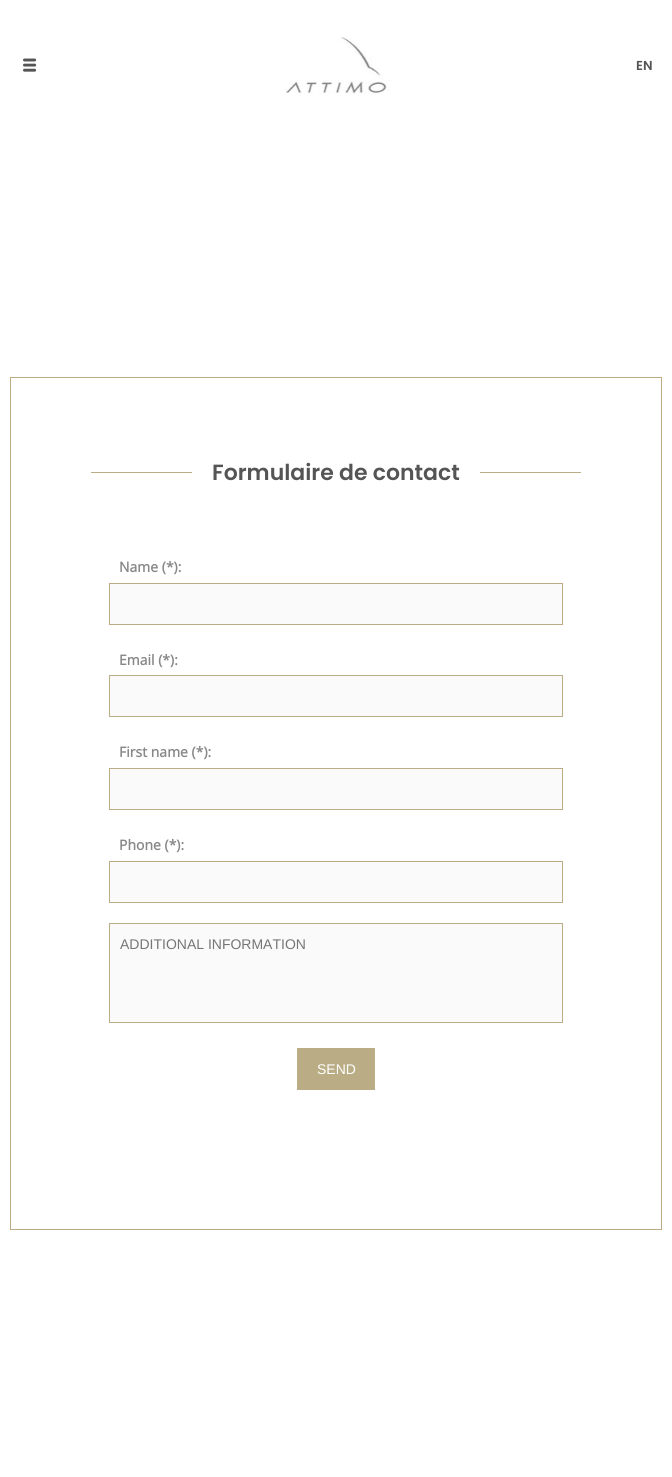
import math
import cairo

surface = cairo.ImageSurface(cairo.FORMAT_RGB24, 672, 1477)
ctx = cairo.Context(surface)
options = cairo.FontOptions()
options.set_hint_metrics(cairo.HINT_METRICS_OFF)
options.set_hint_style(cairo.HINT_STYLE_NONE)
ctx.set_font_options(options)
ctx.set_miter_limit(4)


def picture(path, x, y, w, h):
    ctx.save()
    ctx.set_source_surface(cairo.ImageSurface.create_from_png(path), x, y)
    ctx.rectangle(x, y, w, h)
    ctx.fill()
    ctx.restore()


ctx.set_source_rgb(1, 1, 1)
ctx.paint()
picture("img1.png", 23, 58, 14, 14)
picture("img2.png", 286, 37, 104, 57)
ctx.select_font_face("Poppins SemiBold")
ctx.set_font_size(13)
ctx.set_source_rgb(0.333, 0.333, 0.333)
ctx.move_to(636, 70)
ctx.show_text("EN")
ctx.rectangle(10.5, 377.5, 651, 852)
ctx.set_source_rgb(0.729, 0.678, 0.522)
ctx.set_line_width(1)
ctx.stroke()
ctx.rectangle(91, 472, 101, 1)
ctx.fill()
ctx.set_font_size(22)
ctx.set_source_rgb(0.333, 0.333, 0.333)
ctx.move_to(212, 480)
ctx.show_text("Formulaire de contact")
ctx.set_source_rgb(0.729, 0.678, 0.522)
ctx.rectangle(480, 472, 101, 1)
ctx.fill()
ctx.select_font_face("Open Sans", cairo.FONT_SLANT_NORMAL, cairo.FONT_WEIGHT_BOLD)
ctx.set_font_size(14)
ctx.set_source_rgb(0.533, 0.533, 0.533)
ctx.move_to(119, 572)
ctx.show_text("Name (*):")
ctx.set_source_rgb(0.98, 0.98, 0.98)
ctx.rectangle(109.5, 583.5, 453, 41)
ctx.fill_preserve()
ctx.set_source_rgb(0.729, 0.678, 0.522)
ctx.stroke()
ctx.set_source_rgb(0.533, 0.533, 0.533)
ctx.move_to(119, 665)
ctx.show_text("Email (*):")
ctx.set_source_rgb(0.98, 0.98, 0.98)
ctx.rectangle(109.5, 675.5, 453, 41)
ctx.fill_preserve()
ctx.set_source_rgb(0.729, 0.678, 0.522)
ctx.stroke()
ctx.set_source_rgb(0.533, 0.533, 0.533)
ctx.move_to(119, 757)
ctx.show_text("First name (*):")
ctx.set_source_rgb(0.98, 0.98, 0.98)
ctx.rectangle(109.5, 768.5, 453, 41)
ctx.fill_preserve()
ctx.set_source_rgb(0.729, 0.678, 0.522)
ctx.stroke()
ctx.set_source_rgb(0.533, 0.533, 0.533)
ctx.move_to(119, 850)
ctx.show_text("Phone (*):")
ctx.set_source_rgb(0.98, 0.98, 0.98)
ctx.rectangle(109.5, 861.5, 453, 41)
ctx.fill_preserve()
ctx.set_source_rgb(0.729, 0.678, 0.522)
ctx.stroke()
ctx.set_source_rgb(0.98, 0.98, 0.98)
ctx.rectangle(109.5, 923.5, 453, 99)
ctx.fill_preserve()
ctx.set_source_rgb(0.729, 0.678, 0.522)
ctx.stroke()
ctx.select_font_face("Liberation Sans")
ctx.set_source_rgb(0.459, 0.459, 0.459)
ctx.move_to(120, 949)
ctx.show_text("ADDITIONAL INFORMATION")
ctx.set_source_rgb(0.729, 0.678, 0.522)
ctx.rectangle(297, 1048, 78, 42)
ctx.fill()
ctx.set_source_rgb(1, 1, 1)
ctx.move_to(317, 1074)
ctx.show_text("SEND")
surface.write_to_png("page.png")
